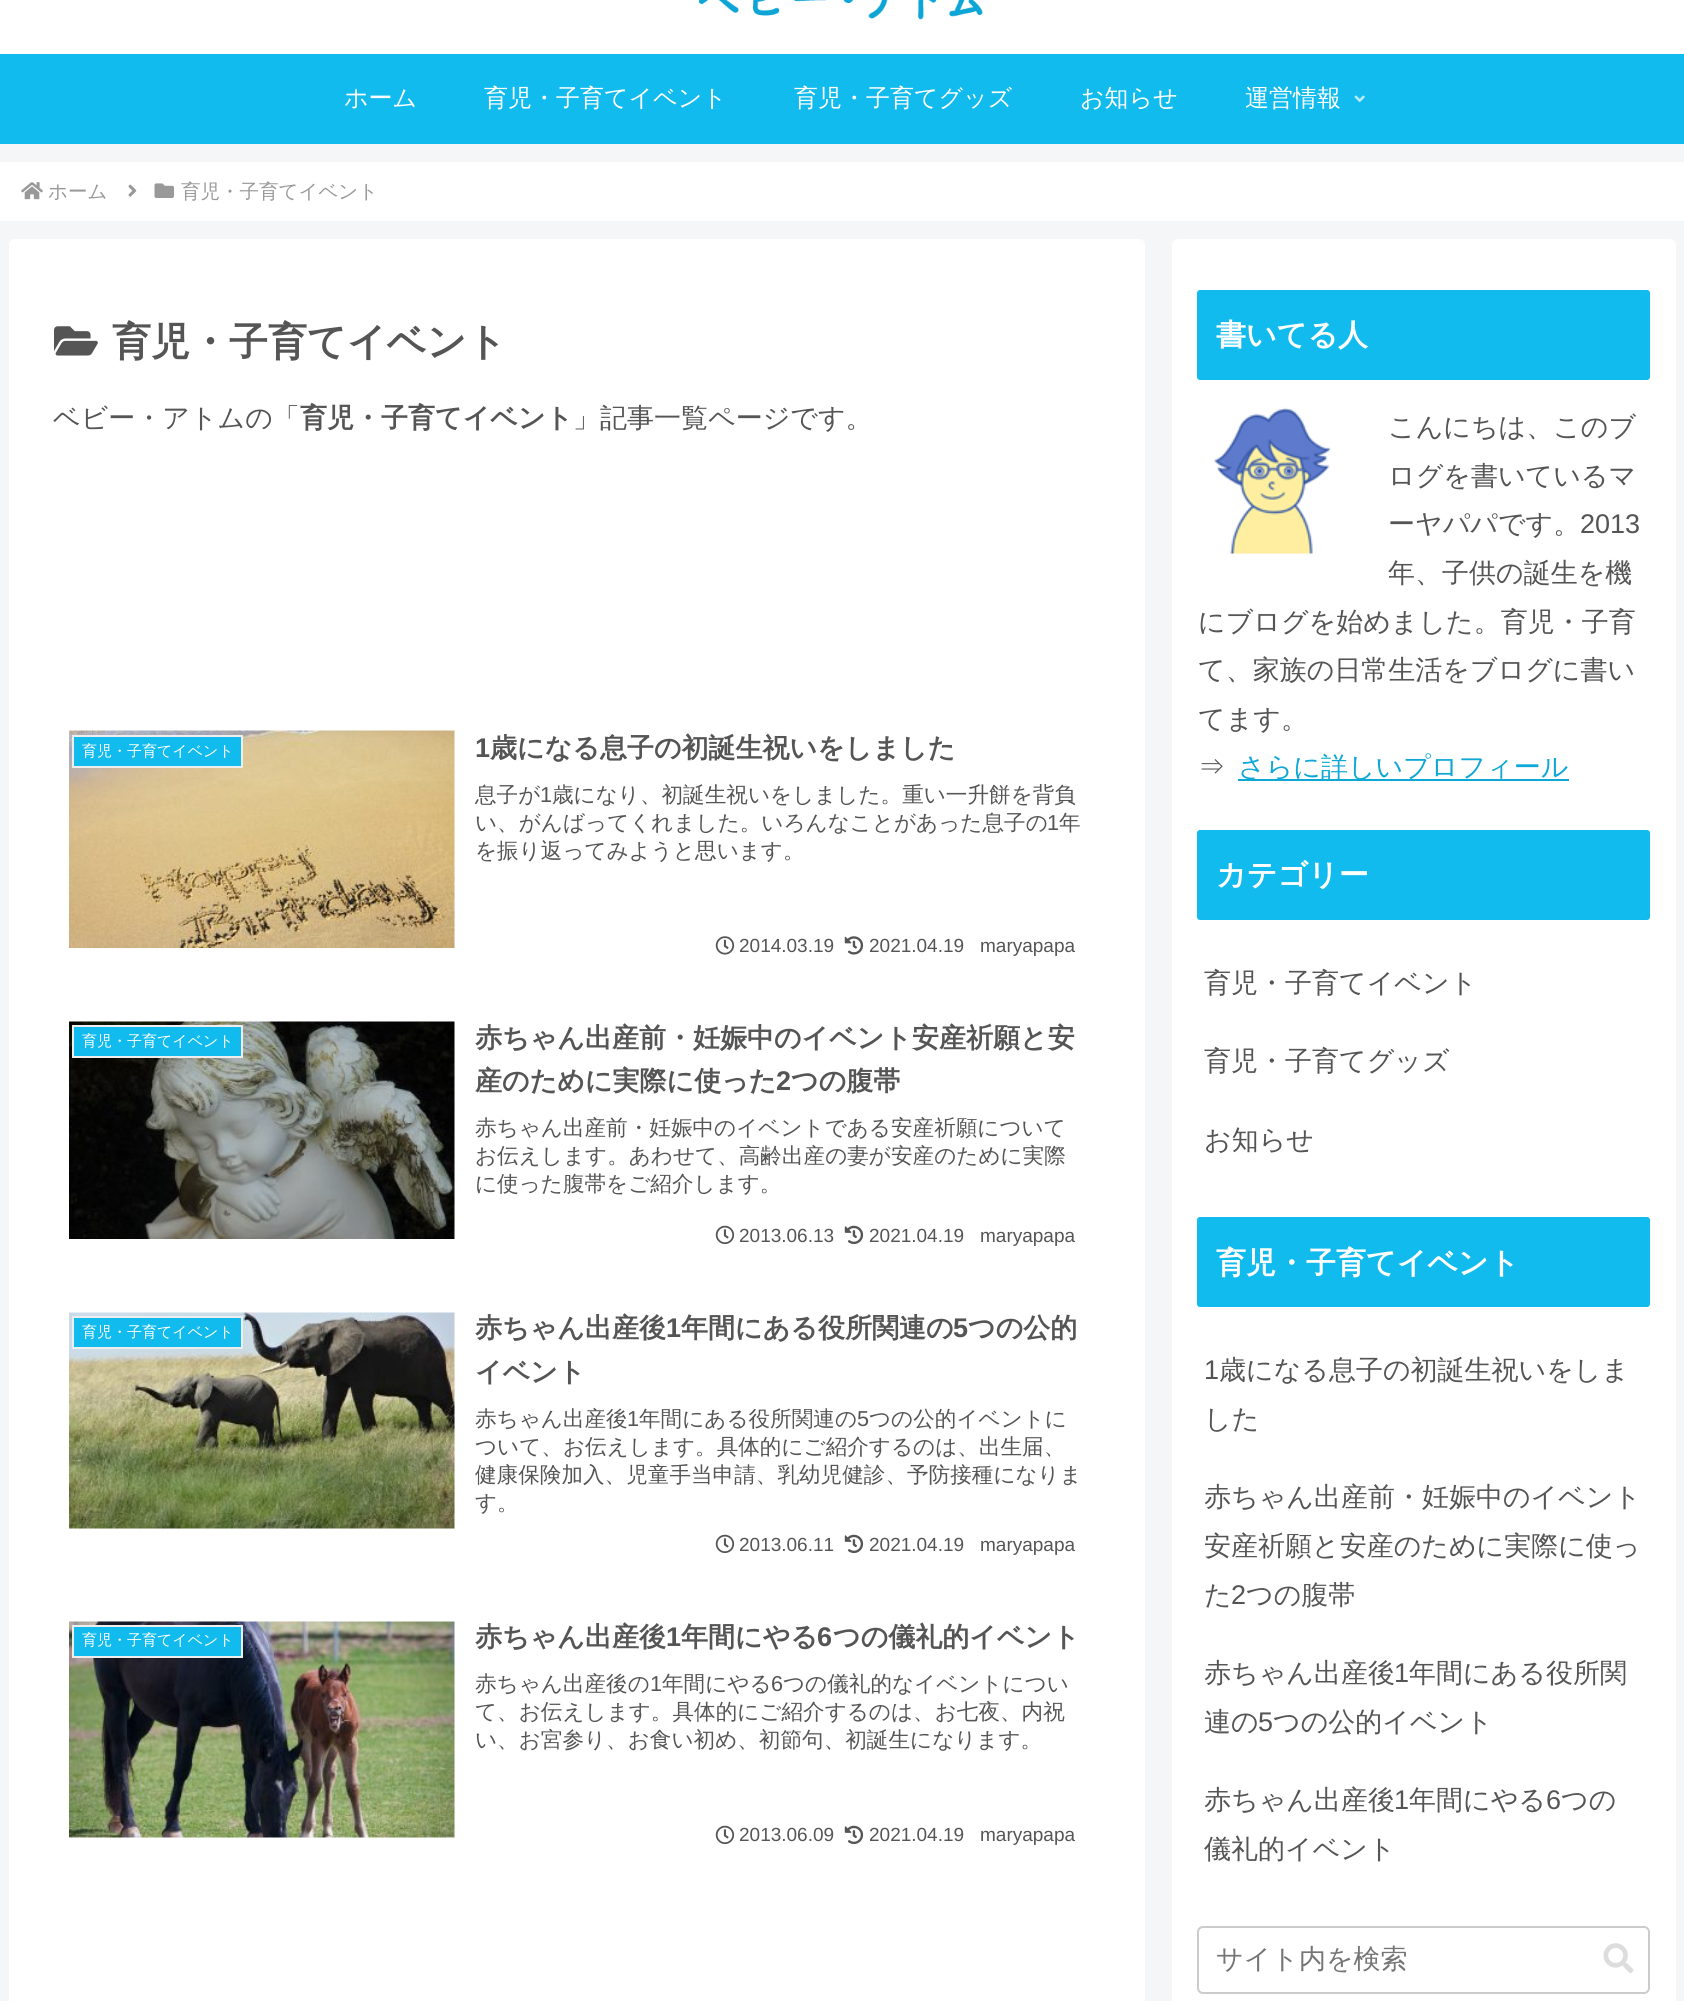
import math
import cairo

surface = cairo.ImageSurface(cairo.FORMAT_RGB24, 1684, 2001)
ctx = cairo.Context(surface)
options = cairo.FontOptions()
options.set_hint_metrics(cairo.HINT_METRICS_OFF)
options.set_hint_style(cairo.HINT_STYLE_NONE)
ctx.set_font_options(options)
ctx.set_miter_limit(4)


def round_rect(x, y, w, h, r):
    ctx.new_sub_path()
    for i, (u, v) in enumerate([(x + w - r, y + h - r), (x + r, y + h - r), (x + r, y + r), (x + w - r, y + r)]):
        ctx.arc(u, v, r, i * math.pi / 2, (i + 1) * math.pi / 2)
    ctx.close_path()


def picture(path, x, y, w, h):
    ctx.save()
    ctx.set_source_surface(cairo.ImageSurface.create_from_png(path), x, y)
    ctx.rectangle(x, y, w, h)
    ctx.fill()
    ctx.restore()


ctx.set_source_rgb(0.957, 0.961, 0.969)
ctx.paint()
ctx.set_source_rgb(0.067, 0.733, 0.933)
ctx.rectangle(0, 54, 1684, 90)
ctx.fill()
ctx.set_source_rgb(1, 1, 1)
ctx.rectangle(0, 0, 1684, 54)
ctx.fill()
picture("img1.png", 699, 0, 284, 20)
ctx.select_font_face("WenQuanYi Zen Hei Medium")
ctx.set_font_size(24)
ctx.move_to(344, 106)
ctx.show_text("ホーム")
ctx.move_to(484, 106)
ctx.show_text("育児・子育てイベント")
ctx.move_to(794, 106)
ctx.show_text("育児・子育てグッズ")
ctx.move_to(1080, 106)
ctx.show_text("お知らせ")
ctx.move_to(1245, 106)
ctx.show_text("運営情報")
picture("img2.png", 1354, 95, 11, 8)
ctx.rectangle(0, 162, 1684, 59)
ctx.fill()
picture("img3.png", 21, 182, 22, 18)
ctx.set_font_size(19.5)
ctx.set_source_rgb(0.6, 0.6, 0.6)
ctx.move_to(48, 198)
ctx.show_text("ホーム")
picture("img4.png", 128, 184, 9, 13)
picture("img5.png", 154, 183, 20, 15)
ctx.move_to(181, 198)
ctx.show_text("育児・子育てイベント")
ctx.set_source_rgb(1, 1, 1)
round_rect(9, 239, 1136, 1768, 6)
ctx.fill()
picture("img6.png", 54, 326, 44, 30)
ctx.select_font_face("WenQuanYi Zen Hei", cairo.FONT_SLANT_NORMAL, cairo.FONT_WEIGHT_BOLD)
ctx.set_font_size(39)
ctx.set_source_rgb(0.333, 0.333, 0.333)
ctx.move_to(112, 355)
ctx.show_text("育児・子育てイベント")
ctx.select_font_face("WenQuanYi Zen Hei Medium")
ctx.set_font_size(27)
ctx.move_to(53, 427)
ctx.show_text("ベビー・アトムの「")
ctx.select_font_face("WenQuanYi Zen Hei", cairo.FONT_SLANT_NORMAL, cairo.FONT_WEIGHT_BOLD)
ctx.move_to(300, 427)
ctx.show_text("育児・子育てイベント")
ctx.select_font_face("WenQuanYi Zen Hei Medium")
ctx.move_to(573, 427)
ctx.show_text("」記事一覧ページです。")
picture("img7.png", 69, 730, 386, 218)
ctx.set_source_rgb(0.067, 0.733, 0.933)
ctx.rectangle(73, 736, 169, 31)
ctx.fill_preserve()
ctx.set_source_rgb(0.933, 0.933, 0.933)
ctx.stroke()
ctx.set_font_size(15)
ctx.set_source_rgb(1, 1, 1)
ctx.move_to(82, 756)
ctx.show_text("育児・子育てイベント")
ctx.select_font_face("Liberation Sans", cairo.FONT_SLANT_NORMAL, cairo.FONT_WEIGHT_BOLD)
ctx.set_font_size(27)
ctx.set_source_rgb(0.333, 0.333, 0.333)
ctx.move_to(475, 757)
ctx.show_text("1")
ctx.select_font_face("WenQuanYi Zen Hei", cairo.FONT_SLANT_NORMAL, cairo.FONT_WEIGHT_BOLD)
ctx.move_to(490, 757)
ctx.show_text("歳になる息子の初誕生祝いをしました")
ctx.select_font_face("WenQuanYi Zen Hei Medium")
ctx.set_font_size(21.6)
ctx.move_to(475, 802)
ctx.show_text("息子が")
ctx.select_font_face("Liberation Sans")
ctx.move_to(540, 802)
ctx.show_text("1")
ctx.select_font_face("WenQuanYi Zen Hei Medium")
ctx.move_to(552, 802)
ctx.show_text("歳になり、初誕生祝いをしました。重い一升餅を背負")
ctx.move_to(475, 830)
ctx.show_text("い、がんばってくれました。いろんなことがあった息子の")
ctx.select_font_face("Liberation Sans")
ctx.move_to(1047, 830)
ctx.show_text("1")
ctx.select_font_face("WenQuanYi Zen Hei Medium")
ctx.move_to(1059, 830)
ctx.show_text("年")
ctx.move_to(475, 858)
ctx.show_text("を振り返ってみようと思います。")
picture("img8.png", 715, 936, 20, 19)
ctx.select_font_face("Liberation Sans")
ctx.set_font_size(19)
ctx.move_to(739, 952)
ctx.show_text("2014.03.19")
picture("img9.png", 844, 936, 20, 19)
ctx.move_to(869, 952)
ctx.show_text("2021.04.19")
ctx.move_to(980, 952)
ctx.show_text("maryapapa")
picture("img10.png", 69, 1021, 386, 218)
ctx.set_source_rgb(0.067, 0.733, 0.933)
ctx.rectangle(73, 1026, 169, 31)
ctx.fill_preserve()
ctx.set_source_rgb(0.933, 0.933, 0.933)
ctx.stroke()
ctx.select_font_face("WenQuanYi Zen Hei Medium")
ctx.set_font_size(15)
ctx.set_source_rgb(1, 1, 1)
ctx.move_to(82, 1046)
ctx.show_text("育児・子育てイベント")
ctx.select_font_face("WenQuanYi Zen Hei", cairo.FONT_SLANT_NORMAL, cairo.FONT_WEIGHT_BOLD)
ctx.set_font_size(27)
ctx.set_source_rgb(0.333, 0.333, 0.333)
ctx.move_to(475, 1047)
ctx.show_text("赤ちゃん出産前・妊娠中のイベント安産祈願と安")
ctx.move_to(475, 1090)
ctx.show_text("産のために実際に使った")
ctx.select_font_face("Liberation Sans", cairo.FONT_SLANT_NORMAL, cairo.FONT_WEIGHT_BOLD)
ctx.move_to(776, 1090)
ctx.show_text("2")
ctx.select_font_face("WenQuanYi Zen Hei", cairo.FONT_SLANT_NORMAL, cairo.FONT_WEIGHT_BOLD)
ctx.move_to(791, 1090)
ctx.show_text("つの腹帯")
ctx.select_font_face("WenQuanYi Zen Hei Medium")
ctx.set_font_size(21.6)
ctx.move_to(475, 1135)
ctx.show_text("赤ちゃん出産前・妊娠中のイベントである安産祈願について")
ctx.move_to(475, 1163)
ctx.show_text("お伝えします。あわせて、高齢出産の妻が安産のために実際")
ctx.move_to(475, 1191)
ctx.show_text("に使った腹帯をご紹介します。")
picture("img11.png", 715, 1225, 20, 20)
ctx.select_font_face("Liberation Sans")
ctx.set_font_size(19)
ctx.move_to(739, 1242)
ctx.show_text("2013.06.13")
picture("img12.png", 844, 1225, 20, 20)
ctx.move_to(869, 1242)
ctx.show_text("2021.04.19")
ctx.move_to(980, 1242)
ctx.show_text("maryapapa")
picture("img13.png", 69, 1312, 386, 217)
ctx.set_source_rgb(0.067, 0.733, 0.933)
ctx.rectangle(73, 1317, 169, 31)
ctx.fill_preserve()
ctx.set_source_rgb(0.933, 0.933, 0.933)
ctx.stroke()
ctx.select_font_face("WenQuanYi Zen Hei Medium")
ctx.set_font_size(15)
ctx.set_source_rgb(1, 1, 1)
ctx.move_to(82, 1337)
ctx.show_text("育児・子育てイベント")
ctx.select_font_face("WenQuanYi Zen Hei", cairo.FONT_SLANT_NORMAL, cairo.FONT_WEIGHT_BOLD)
ctx.set_font_size(27)
ctx.set_source_rgb(0.333, 0.333, 0.333)
ctx.move_to(475, 1337)
ctx.show_text("赤ちゃん出産後")
ctx.select_font_face("Liberation Sans", cairo.FONT_SLANT_NORMAL, cairo.FONT_WEIGHT_BOLD)
ctx.move_to(666, 1337)
ctx.show_text("1")
ctx.select_font_face("WenQuanYi Zen Hei", cairo.FONT_SLANT_NORMAL, cairo.FONT_WEIGHT_BOLD)
ctx.move_to(681, 1337)
ctx.show_text("年間にある役所関連の")
ctx.select_font_face("Liberation Sans", cairo.FONT_SLANT_NORMAL, cairo.FONT_WEIGHT_BOLD)
ctx.move_to(953, 1337)
ctx.show_text("5")
ctx.select_font_face("WenQuanYi Zen Hei", cairo.FONT_SLANT_NORMAL, cairo.FONT_WEIGHT_BOLD)
ctx.move_to(968, 1337)
ctx.show_text("つの公的")
ctx.move_to(475, 1381)
ctx.show_text("イベント")
ctx.select_font_face("WenQuanYi Zen Hei Medium")
ctx.set_font_size(21.6)
ctx.move_to(475, 1426)
ctx.show_text("赤ちゃん出産後")
ctx.select_font_face("Liberation Sans")
ctx.move_to(627, 1426)
ctx.show_text("1")
ctx.select_font_face("WenQuanYi Zen Hei Medium")
ctx.move_to(639, 1426)
ctx.show_text("年間にある役所関連の")
ctx.select_font_face("Liberation Sans")
ctx.move_to(857, 1426)
ctx.show_text("5")
ctx.select_font_face("WenQuanYi Zen Hei Medium")
ctx.move_to(869, 1426)
ctx.show_text("つの公的イベントに")
ctx.move_to(475, 1454)
ctx.show_text("ついて、お伝えします。具体的にご紹介するのは、出生届、")
ctx.move_to(475, 1482)
ctx.show_text("健康保険加入、児童手当申請、乳幼児健診、予防接種になりま")
ctx.move_to(475, 1510)
ctx.show_text("す。")
picture("img11.png", 715, 1534, 20, 20)
ctx.select_font_face("Liberation Sans")
ctx.set_font_size(19)
ctx.move_to(739, 1551)
ctx.show_text("2013.06.11")
picture("img12.png", 844, 1534, 20, 20)
ctx.move_to(869, 1551)
ctx.show_text("2021.04.19")
ctx.move_to(980, 1551)
ctx.show_text("maryapapa")
picture("img14.png", 69, 1621, 386, 217)
ctx.set_source_rgb(0.067, 0.733, 0.933)
ctx.rectangle(73, 1626, 169, 31)
ctx.fill_preserve()
ctx.set_source_rgb(0.933, 0.933, 0.933)
ctx.stroke()
ctx.select_font_face("WenQuanYi Zen Hei Medium")
ctx.set_font_size(15)
ctx.set_source_rgb(1, 1, 1)
ctx.move_to(82, 1645)
ctx.show_text("育児・子育てイベント")
ctx.select_font_face("WenQuanYi Zen Hei", cairo.FONT_SLANT_NORMAL, cairo.FONT_WEIGHT_BOLD)
ctx.set_font_size(27)
ctx.set_source_rgb(0.333, 0.333, 0.333)
ctx.move_to(475, 1646)
ctx.show_text("赤ちゃん出産後")
ctx.select_font_face("Liberation Sans", cairo.FONT_SLANT_NORMAL, cairo.FONT_WEIGHT_BOLD)
ctx.move_to(666, 1646)
ctx.show_text("1")
ctx.select_font_face("WenQuanYi Zen Hei", cairo.FONT_SLANT_NORMAL, cairo.FONT_WEIGHT_BOLD)
ctx.move_to(681, 1646)
ctx.show_text("年間にやる")
ctx.select_font_face("Liberation Sans", cairo.FONT_SLANT_NORMAL, cairo.FONT_WEIGHT_BOLD)
ctx.move_to(817, 1646)
ctx.show_text("6")
ctx.select_font_face("WenQuanYi Zen Hei", cairo.FONT_SLANT_NORMAL, cairo.FONT_WEIGHT_BOLD)
ctx.move_to(833, 1646)
ctx.show_text("つの儀礼的イベント")
ctx.select_font_face("WenQuanYi Zen Hei Medium")
ctx.set_font_size(21.6)
ctx.move_to(475, 1691)
ctx.show_text("赤ちゃん出産後の")
ctx.select_font_face("Liberation Sans")
ctx.move_to(650, 1691)
ctx.show_text("1")
ctx.select_font_face("WenQuanYi Zen Hei Medium")
ctx.move_to(662, 1691)
ctx.show_text("年間にやる")
ctx.select_font_face("Liberation Sans")
ctx.move_to(771, 1691)
ctx.show_text("6")
ctx.select_font_face("WenQuanYi Zen Hei Medium")
ctx.move_to(783, 1691)
ctx.show_text("つの儀礼的なイベントについ")
ctx.move_to(475, 1719)
ctx.show_text("て、お伝えします。具体的にご紹介するのは、お七夜、内祝")
ctx.move_to(475, 1747)
ctx.show_text("い、お宮参り、お食い初め、初節句、初誕生になります。")
picture("img11.png", 715, 1825, 20, 20)
ctx.select_font_face("Liberation Sans")
ctx.set_font_size(19)
ctx.move_to(739, 1841)
ctx.show_text("2013.06.09")
picture("img12.png", 844, 1825, 20, 20)
ctx.move_to(869, 1841)
ctx.show_text("2021.04.19")
ctx.move_to(980, 1841)
ctx.show_text("maryapapa")
ctx.set_source_rgb(1, 1, 1)
round_rect(1172, 239, 504, 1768, 6)
ctx.fill()
ctx.set_source_rgb(0.067, 0.733, 0.933)
round_rect(1197, 290, 453, 90, 3)
ctx.fill()
ctx.select_font_face("WenQuanYi Zen Hei", cairo.FONT_SLANT_NORMAL, cairo.FONT_WEIGHT_BOLD)
ctx.set_font_size(30)
ctx.set_source_rgb(1, 1, 1)
ctx.move_to(1216, 345)
ctx.show_text("書いてる人")
picture("img15.png", 1213, 407, 118, 147)
ctx.select_font_face("WenQuanYi Zen Hei Medium")
ctx.set_font_size(27)
ctx.set_source_rgb(0.333, 0.333, 0.333)
ctx.move_to(1388, 436)
ctx.show_text("こんにちは、このブ")
ctx.move_to(1388, 485)
ctx.show_text("ログを書いているマ")
ctx.move_to(1388, 533)
ctx.show_text("ーヤパパです。")
ctx.select_font_face("Liberation Sans")
ctx.move_to(1580, 533)
ctx.show_text("2013")
ctx.select_font_face("WenQuanYi Zen Hei Medium")
ctx.move_to(1388, 582)
ctx.show_text("年、子供の誕生を機")
ctx.move_to(1198, 631)
ctx.show_text("にブログを始めました。育児・子育")
ctx.move_to(1198, 679)
ctx.show_text("て、家族の日常生活をブログに書い")
ctx.move_to(1198, 728)
ctx.show_text("てます。")
ctx.move_to(1198, 776)
ctx.show_text("⇒")
ctx.set_source_rgb(0.059, 0.659, 0.839)
ctx.rectangle(1238, 779, 331, 2)
ctx.fill()
ctx.move_to(1238, 776)
ctx.show_text("さらに詳しいプロフィール")
ctx.set_source_rgb(0.067, 0.733, 0.933)
round_rect(1197, 830, 453, 90, 3)
ctx.fill()
ctx.select_font_face("WenQuanYi Zen Hei", cairo.FONT_SLANT_NORMAL, cairo.FONT_WEIGHT_BOLD)
ctx.set_font_size(30)
ctx.set_source_rgb(1, 1, 1)
ctx.move_to(1216, 885)
ctx.show_text("カテゴリー")
ctx.select_font_face("WenQuanYi Zen Hei Medium")
ctx.set_font_size(27)
ctx.set_source_rgb(0.333, 0.333, 0.333)
ctx.move_to(1204, 992)
ctx.show_text("育児・子育てイベント")
ctx.move_to(1204, 1070)
ctx.show_text("育児・子育てグッズ")
ctx.move_to(1204, 1149)
ctx.show_text("お知らせ")
ctx.set_source_rgb(0.067, 0.733, 0.933)
round_rect(1197, 1217, 453, 90, 3)
ctx.fill()
ctx.select_font_face("WenQuanYi Zen Hei", cairo.FONT_SLANT_NORMAL, cairo.FONT_WEIGHT_BOLD)
ctx.set_font_size(30)
ctx.set_source_rgb(1, 1, 1)
ctx.move_to(1216, 1273)
ctx.show_text("育児・子育てイベント")
ctx.select_font_face("Liberation Sans")
ctx.set_font_size(27)
ctx.set_source_rgb(0.333, 0.333, 0.333)
ctx.move_to(1204, 1379)
ctx.show_text("1")
ctx.select_font_face("WenQuanYi Zen Hei Medium")
ctx.move_to(1219, 1379)
ctx.show_text("歳になる息子の初誕生祝いをしま")
ctx.move_to(1204, 1428)
ctx.show_text("した")
ctx.move_to(1204, 1506)
ctx.show_text("赤ちゃん出産前・妊娠中のイベント")
ctx.move_to(1204, 1555)
ctx.show_text("安産祈願と安産のために実際に使っ")
ctx.move_to(1204, 1604)
ctx.show_text("た")
ctx.select_font_face("Liberation Sans")
ctx.move_to(1231, 1604)
ctx.show_text("2")
ctx.select_font_face("WenQuanYi Zen Hei Medium")
ctx.move_to(1246, 1604)
ctx.show_text("つの腹帯")
ctx.move_to(1204, 1682)
ctx.show_text("赤ちゃん出産後")
ctx.select_font_face("Liberation Sans")
ctx.move_to(1394, 1682)
ctx.show_text("1")
ctx.select_font_face("WenQuanYi Zen Hei Medium")
ctx.move_to(1409, 1682)
ctx.show_text("年間にある役所関")
ctx.move_to(1204, 1731)
ctx.show_text("連の")
ctx.select_font_face("Liberation Sans")
ctx.move_to(1258, 1731)
ctx.show_text("5")
ctx.select_font_face("WenQuanYi Zen Hei Medium")
ctx.move_to(1273, 1731)
ctx.show_text("つの公的イベント")
ctx.move_to(1204, 1809)
ctx.show_text("赤ちゃん出産後")
ctx.select_font_face("Liberation Sans")
ctx.move_to(1394, 1809)
ctx.show_text("1")
ctx.select_font_face("WenQuanYi Zen Hei Medium")
ctx.move_to(1409, 1809)
ctx.show_text("年間にやる")
ctx.select_font_face("Liberation Sans")
ctx.move_to(1546, 1809)
ctx.show_text("6")
ctx.select_font_face("WenQuanYi Zen Hei Medium")
ctx.move_to(1561, 1809)
ctx.show_text("つの")
ctx.move_to(1204, 1858)
ctx.show_text("儀礼的イベント")
round_rect(1198, 1927, 451, 66, 5)
ctx.set_source_rgb(0.8, 0.8, 0.8)
ctx.stroke()
ctx.set_source_rgb(0.459, 0.459, 0.459)
ctx.move_to(1216, 1968)
ctx.show_text("サイト内を検索")
picture("img16.png", 1603, 1943, 31, 31)
surface.write_to_png("page.png")
